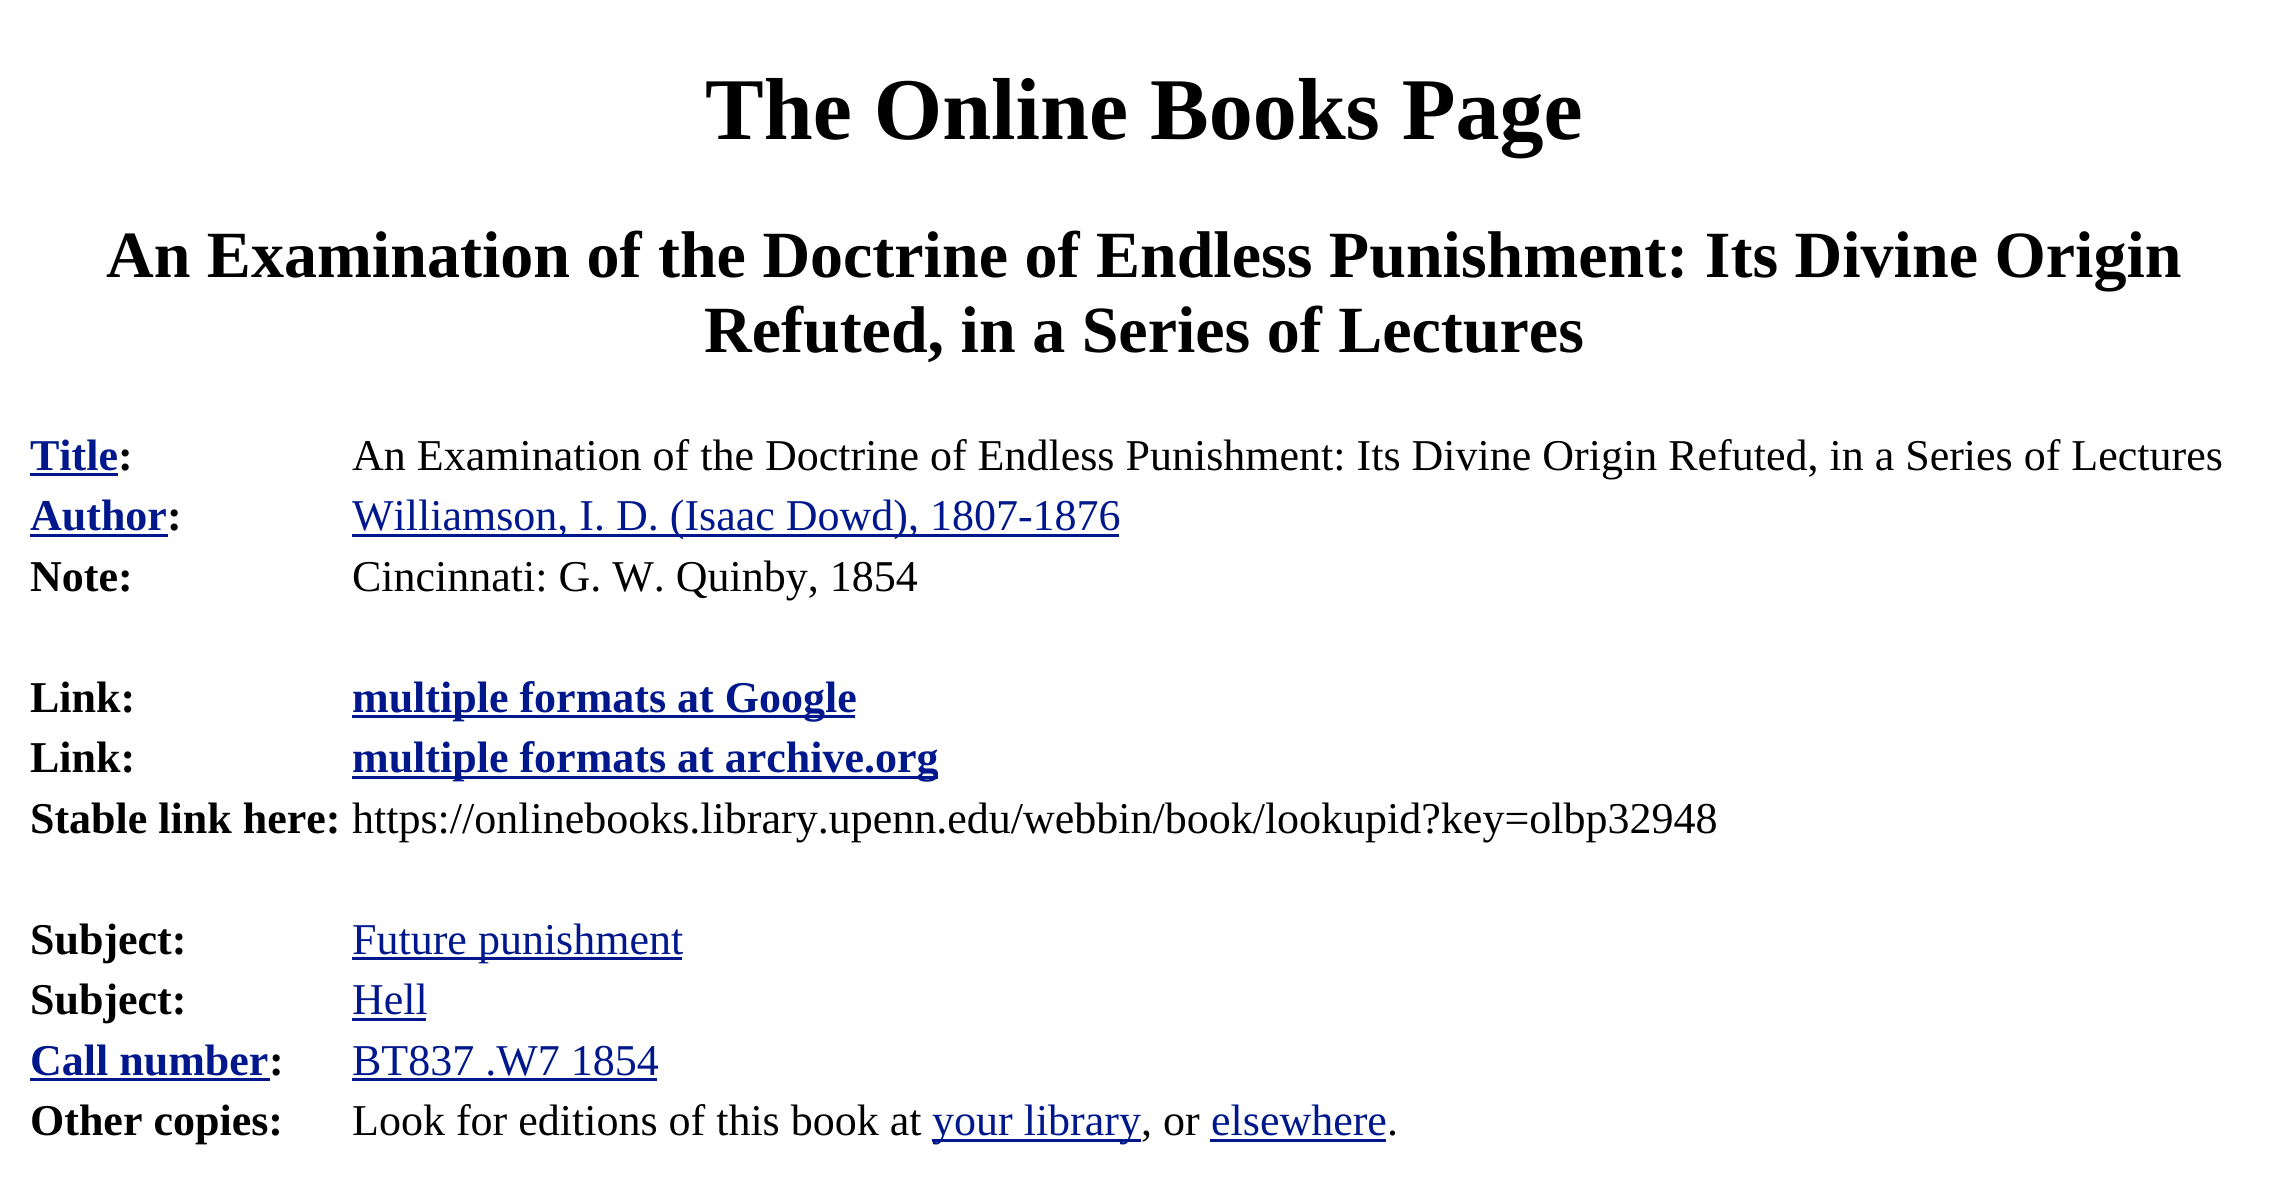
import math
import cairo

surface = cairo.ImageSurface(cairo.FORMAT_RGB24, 2287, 1184)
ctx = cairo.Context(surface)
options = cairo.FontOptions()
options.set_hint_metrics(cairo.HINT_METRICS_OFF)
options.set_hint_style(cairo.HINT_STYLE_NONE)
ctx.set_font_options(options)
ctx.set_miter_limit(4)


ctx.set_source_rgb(1, 1, 1)
ctx.paint()
ctx.select_font_face("Liberation Serif", cairo.FONT_SLANT_NORMAL, cairo.FONT_WEIGHT_BOLD)
ctx.set_font_size(88)
ctx.set_source_rgb(0, 0, 0)
ctx.move_to(705, 139)
ctx.show_text("The Online Books Page")
ctx.set_font_size(66)
ctx.move_to(106, 277)
ctx.show_text("An Examination of the Doctrine of Endless Punishment: Its Divine Origin")
ctx.move_to(704, 352)
ctx.show_text("Refuted, in a Series of Lectures")
ctx.set_font_size(44)
ctx.set_source_rgb(0, 0.094, 0.549)
ctx.move_to(30, 470)
ctx.show_text("Title")
ctx.set_source_rgb(0, 0, 0)
ctx.move_to(118, 470)
ctx.show_text(":")
ctx.set_source_rgb(0, 0.094, 0.549)
ctx.rectangle(30, 473, 88, 3)
ctx.fill()
ctx.select_font_face("Liberation Serif")
ctx.set_source_rgb(0, 0, 0)
ctx.move_to(352, 470)
ctx.show_text("An Examination of the Doctrine of Endless Punishment: Its Divine Origin Refuted, in a Series of Lectures")
ctx.select_font_face("Liberation Serif", cairo.FONT_SLANT_NORMAL, cairo.FONT_WEIGHT_BOLD)
ctx.set_source_rgb(0, 0.094, 0.549)
ctx.move_to(30, 530)
ctx.show_text("Author")
ctx.set_source_rgb(0, 0, 0)
ctx.move_to(167, 530)
ctx.show_text(":")
ctx.set_source_rgb(0, 0.094, 0.549)
ctx.rectangle(30, 534, 138, 3)
ctx.fill()
ctx.rectangle(352, 534, 767, 3)
ctx.fill()
ctx.select_font_face("Liberation Serif")
ctx.move_to(352, 530)
ctx.show_text("Williamson, I. D. (Isaac Dowd), 1807-1876")
ctx.select_font_face("Liberation Serif", cairo.FONT_SLANT_NORMAL, cairo.FONT_WEIGHT_BOLD)
ctx.set_source_rgb(0, 0, 0)
ctx.move_to(30, 591)
ctx.show_text("Note:")
ctx.select_font_face("Liberation Serif")
ctx.move_to(352, 591)
ctx.show_text("Cincinnati: G. W. Quinby, 1854")
ctx.select_font_face("Liberation Serif", cairo.FONT_SLANT_NORMAL, cairo.FONT_WEIGHT_BOLD)
ctx.move_to(30, 712)
ctx.show_text("Link:")
ctx.set_source_rgb(0, 0.094, 0.549)
ctx.rectangle(352, 715, 503, 3)
ctx.fill()
ctx.move_to(352, 712)
ctx.show_text("multiple formats at Google")
ctx.set_source_rgb(0, 0, 0)
ctx.move_to(30, 772)
ctx.show_text("Link:")
ctx.set_source_rgb(0, 0.094, 0.549)
ctx.rectangle(352, 776, 586, 3)
ctx.fill()
ctx.move_to(352, 772)
ctx.show_text("multiple formats at archive.org")
ctx.set_source_rgb(0, 0, 0)
ctx.move_to(30, 833)
ctx.show_text("Stable link here:")
ctx.select_font_face("Liberation Serif")
ctx.move_to(352, 833)
ctx.show_text("https://onlinebooks.library.upenn.edu/webbin/book/lookupid?key=olbp32948")
ctx.select_font_face("Liberation Serif", cairo.FONT_SLANT_NORMAL, cairo.FONT_WEIGHT_BOLD)
ctx.move_to(30, 954)
ctx.show_text("Subject:")
ctx.set_source_rgb(0, 0.094, 0.549)
ctx.rectangle(352, 957, 330, 3)
ctx.fill()
ctx.select_font_face("Liberation Serif")
ctx.move_to(352, 954)
ctx.show_text("Future punishment")
ctx.select_font_face("Liberation Serif", cairo.FONT_SLANT_NORMAL, cairo.FONT_WEIGHT_BOLD)
ctx.set_source_rgb(0, 0, 0)
ctx.move_to(30, 1014)
ctx.show_text("Subject:")
ctx.select_font_face("Liberation Serif")
ctx.set_source_rgb(0, 0.094, 0.549)
ctx.move_to(352, 1014)
ctx.show_text("Hell")
ctx.rectangle(352, 1018, 74, 3)
ctx.fill()
ctx.select_font_face("Liberation Serif", cairo.FONT_SLANT_NORMAL, cairo.FONT_WEIGHT_BOLD)
ctx.move_to(30, 1075)
ctx.show_text("Call number")
ctx.set_source_rgb(0, 0, 0)
ctx.move_to(269, 1075)
ctx.show_text(":")
ctx.set_source_rgb(0, 0.094, 0.549)
ctx.rectangle(30, 1078, 240, 3)
ctx.fill()
ctx.select_font_face("Liberation Serif")
ctx.move_to(352, 1075)
ctx.show_text("BT837 .W7 1854")
ctx.rectangle(352, 1078, 305, 3)
ctx.fill()
ctx.select_font_face("Liberation Serif", cairo.FONT_SLANT_NORMAL, cairo.FONT_WEIGHT_BOLD)
ctx.set_source_rgb(0, 0, 0)
ctx.move_to(30, 1135)
ctx.show_text("Other copies:")
ctx.select_font_face("Liberation Serif")
ctx.move_to(352, 1135)
ctx.show_text("Look for editions of this book at")
ctx.set_source_rgb(0, 0.094, 0.549)
ctx.rectangle(932, 1139, 209, 3)
ctx.fill()
ctx.move_to(932, 1135)
ctx.show_text("your library")
ctx.set_source_rgb(0, 0, 0)
ctx.move_to(1141, 1135)
ctx.show_text(", or")
ctx.set_source_rgb(0, 0.094, 0.549)
ctx.move_to(1211, 1135)
ctx.show_text("elsewhere")
ctx.rectangle(1210, 1139, 176, 3)
ctx.fill()
ctx.set_source_rgb(0, 0, 0)
ctx.move_to(1387, 1135)
ctx.show_text(".")
surface.write_to_png("page.png")
